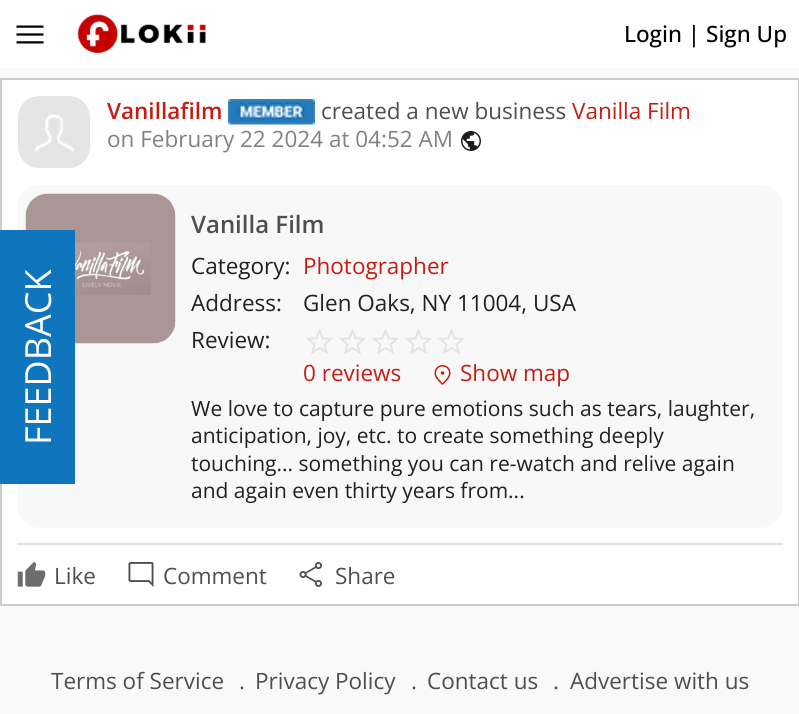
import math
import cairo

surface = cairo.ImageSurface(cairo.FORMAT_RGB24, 799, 714)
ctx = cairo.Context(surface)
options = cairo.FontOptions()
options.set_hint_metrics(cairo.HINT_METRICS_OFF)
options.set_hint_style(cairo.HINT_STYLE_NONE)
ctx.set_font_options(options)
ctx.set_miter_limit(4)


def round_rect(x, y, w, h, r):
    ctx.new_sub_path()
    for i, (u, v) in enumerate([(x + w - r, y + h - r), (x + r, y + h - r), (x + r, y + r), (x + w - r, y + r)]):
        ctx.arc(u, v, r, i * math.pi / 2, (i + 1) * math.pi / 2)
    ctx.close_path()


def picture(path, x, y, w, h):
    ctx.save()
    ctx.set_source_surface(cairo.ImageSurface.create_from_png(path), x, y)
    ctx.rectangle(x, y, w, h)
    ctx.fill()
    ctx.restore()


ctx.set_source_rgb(0.973, 0.973, 0.973)
ctx.paint()
ctx.set_source_rgb(1, 1, 1)
ctx.rectangle(0, 0, 799, 68)
ctx.fill()
picture("img1.png", 16, 25, 28, 19)
picture("img2.png", 77, 14, 129, 40)
ctx.select_font_face("Open Sans Medium")
ctx.set_font_size(22.5)
ctx.set_source_rgb(0, 0, 0)
ctx.move_to(624, 42)
ctx.show_text("Login | Sign Up")
ctx.set_source_rgb(1, 1, 1)
ctx.rectangle(1, 79, 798, 526)
ctx.fill_preserve()
ctx.set_source_rgb(0.8, 0.8, 0.8)
ctx.stroke()
ctx.set_source_rgb(0.969, 0.969, 0.969)
round_rect(17, 185, 766, 343, 23)
ctx.fill()
picture("img6.png", 25, 193, 151, 151)
ctx.set_source_rgb(0.059, 0.459, 0.741)
ctx.rectangle(0, 230, 75, 254)
ctx.fill()
ctx.select_font_face("Open Sans")
ctx.set_font_size(36)
ctx.set_source_rgb(1, 1, 1)
ctx.save()
ctx.translate(51, 445)
ctx.rotate(-90 * math.pi / 180)
ctx.move_to(0, 0)
ctx.show_text("FEEDBACK")
ctx.restore()
picture("img3.png", 18, 96, 72, 72)
ctx.select_font_face("Open Sans SemiBold")
ctx.set_font_size(22.5)
ctx.set_source_rgb(0.769, 0.118, 0.075)
ctx.move_to(107, 119)
ctx.show_text("Vanillafilm")
picture("img4.png", 228, 99, 87, 26)
ctx.select_font_face("Open Sans")
ctx.set_source_rgb(0.31, 0.31, 0.31)
ctx.move_to(321, 119)
ctx.show_text("created a new business")
ctx.set_source_rgb(0.769, 0.118, 0.075)
ctx.move_to(572, 119)
ctx.show_text("Vanilla Film")
ctx.set_source_rgb(0.51, 0.51, 0.51)
ctx.move_to(107, 147)
ctx.show_text("on February 22 2024 at 04:52 AM")
picture("img5.png", 461, 131, 20, 20)
ctx.select_font_face("Open Sans SemiBold")
ctx.set_font_size(24)
ctx.set_source_rgb(0.31, 0.31, 0.31)
ctx.move_to(191, 233)
ctx.show_text("Vanilla Film")
ctx.select_font_face("Open Sans")
ctx.set_font_size(22.5)
ctx.set_source_rgb(0.129, 0.129, 0.129)
ctx.move_to(191, 274)
ctx.show_text("Category:")
ctx.set_source_rgb(0.769, 0.118, 0.075)
ctx.move_to(303, 274)
ctx.show_text("Photographer")
ctx.set_source_rgb(0.129, 0.129, 0.129)
ctx.move_to(191, 311)
ctx.show_text("Address:")
ctx.move_to(303, 311)
ctx.show_text("Glen Oaks, NY 11004, USA")
ctx.move_to(191, 348)
ctx.show_text("Review:")
picture("img7.png", 306, 328, 27, 26)
picture("img7.png", 339, 328, 27, 26)
picture("img7.png", 372, 328, 27, 26)
picture("img7.png", 405, 328, 27, 26)
picture("img7.png", 438, 328, 27, 26)
ctx.set_source_rgb(0.769, 0.118, 0.075)
ctx.move_to(303, 381)
ctx.show_text("0 reviews")
picture("img8.png", 434, 365, 17, 20)
ctx.move_to(460, 381)
ctx.show_text("Show map")
ctx.set_font_size(21)
ctx.set_source_rgb(0.129, 0.129, 0.129)
ctx.move_to(191, 416)
ctx.show_text("We love to capture pure emotions such as tears, laughter,")
ctx.move_to(191, 443)
ctx.show_text("anticipation, joy, etc. to create something deeply")
ctx.move_to(191, 471)
ctx.show_text("touching... something you can re-watch and relive again")
ctx.move_to(191, 498)
ctx.show_text("and again even thirty years from...")
ctx.set_source_rgb(0.878, 0.878, 0.878)
ctx.rectangle(17, 543, 766, 2)
ctx.fill()
picture("img9.png", 17, 561, 29, 26)
ctx.set_font_size(22.5)
ctx.set_source_rgb(0.31, 0.31, 0.31)
ctx.move_to(54, 584)
ctx.show_text("Like")
picture("img10.png", 128, 562, 26, 25)
ctx.move_to(163, 584)
ctx.show_text("Comment")
picture("img11.png", 299, 562, 23, 25)
ctx.move_to(335, 584)
ctx.show_text("Share")
ctx.move_to(51, 689)
ctx.show_text("Terms of Service")
ctx.move_to(239, 689)
ctx.show_text(".")
ctx.move_to(255, 689)
ctx.show_text("Privacy Policy")
ctx.move_to(411, 689)
ctx.show_text(".")
ctx.move_to(427, 689)
ctx.show_text("Contact us")
ctx.move_to(553, 689)
ctx.show_text(".")
ctx.move_to(570, 689)
ctx.show_text("Advertise with us")
surface.write_to_png("page.png")
